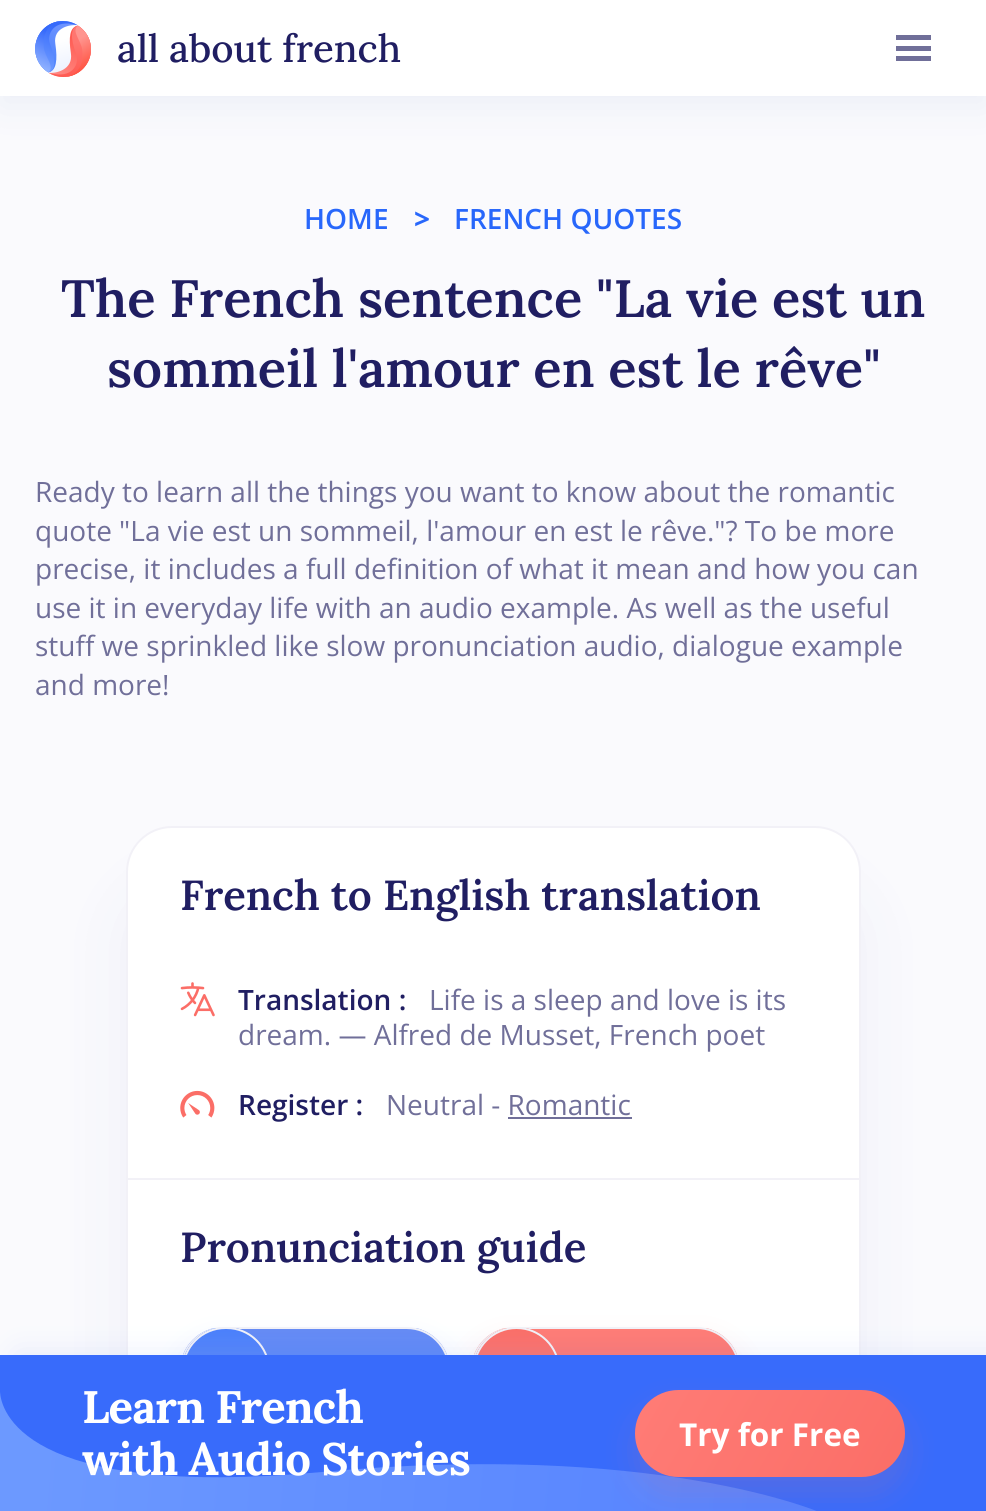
import math
import cairo

surface = cairo.ImageSurface(cairo.FORMAT_RGB24, 986, 1511)
ctx = cairo.Context(surface)
options = cairo.FontOptions()
options.set_hint_metrics(cairo.HINT_METRICS_OFF)
options.set_hint_style(cairo.HINT_STYLE_NONE)
ctx.set_font_options(options)
ctx.set_miter_limit(4)


def spaced_text(x, y, s, letter, word):
    ctx.move_to(x, y)
    for ch in s:
        ctx.show_text(ch)
        ctx.rel_move_to(letter + word * (ch == ' '), 0)


def round_rect(x, y, w, h, r):
    ctx.new_sub_path()
    for i, (u, v) in enumerate([(x + w - r, y + h - r), (x + r, y + h - r), (x + r, y + r), (x + w - r, y + r)]):
        ctx.arc(u, v, r, i * math.pi / 2, (i + 1) * math.pi / 2)
    ctx.close_path()


def shadow(x, y, w, h, r, blur, alpha):
    ctx.push_group_with_content(cairo.CONTENT_ALPHA)
    ctx.set_operator(cairo.OPERATOR_SOURCE)
    for i in range(15, -16, -2):
        e = blur * i / 6
        if min(w, h) + 2 * e > 0:
            ctx.set_source_rgba(0, 0, 0, alpha * math.erfc((i - 1) / 8.5) / 2)
            round_rect(x - e, y - e, w + 2 * e, h + 2 * e, max(0, min(r + e + blur * .6, min(w, h) / 2 + e)))
            ctx.fill()
    ctx.mask(ctx.pop_group())


def picture(path, x, y, w, h):
    ctx.save()
    ctx.set_source_surface(cairo.ImageSurface.create_from_png(path), x, y)
    ctx.rectangle(x, y, w, h)
    ctx.fill()
    ctx.restore()


ctx.set_source_rgb(0.98, 0.98, 0.992)
ctx.paint()
ctx.set_source_rgb(0.043, 0.216, 0.557)
shadow(0, 11, 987, 96, 0, 19, 0.06)
ctx.set_source_rgb(1, 1, 1)
ctx.rectangle(0, 0, 986, 96)
ctx.fill()
picture("img1.png", 35, 21, 56, 56)
ctx.select_font_face("Lora Medium")
ctx.set_font_size(38.5)
ctx.set_source_rgb(0.125, 0.118, 0.384)
ctx.move_to(117, 62)
ctx.show_text("all about french")
ctx.set_source_rgb(0.439, 0.435, 0.6)
ctx.rectangle(896, 35, 35, 5)
ctx.fill()
ctx.rectangle(896, 46, 35, 5)
ctx.fill()
ctx.rectangle(896, 56, 35, 5)
ctx.fill()
ctx.select_font_face("Open Sans SemiBold")
ctx.set_font_size(28)
ctx.set_source_rgb(0.157, 0.404, 0.984)
ctx.move_to(304, 229)
ctx.show_text("HOME")
ctx.select_font_face("Open Sans", cairo.FONT_SLANT_NORMAL, cairo.FONT_WEIGHT_BOLD)
ctx.move_to(414, 229)
ctx.show_text(">")
ctx.select_font_face("Open Sans SemiBold")
ctx.move_to(454, 229)
ctx.show_text("FRENCH QUOTES")
ctx.select_font_face("Lora SemiBold")
ctx.set_font_size(52.5)
ctx.set_source_rgb(0.125, 0.118, 0.384)
ctx.move_to(61, 317)
ctx.show_text("The French sentence \"La vie est un")
ctx.move_to(107, 387)
ctx.show_text("sommeil l'amour en est le rêve\"")
ctx.select_font_face("Open Sans")
ctx.set_font_size(28)
ctx.set_source_rgb(0.439, 0.435, 0.6)
ctx.move_to(35, 502)
ctx.show_text("Ready to learn all the things you want to know about the romantic")
ctx.move_to(35, 541)
ctx.show_text("quote \"La vie est un sommeil, l'amour en est le rêve.\"? To be more")
ctx.move_to(35, 579)
ctx.show_text("precise, it includes a full definition of what it mean and how you can")
ctx.move_to(35, 618)
ctx.show_text("use it in everyday life with an audio example. As well as the useful")
ctx.move_to(35, 656)
ctx.show_text("stuff we sprinkled like slow pronunciation audio, dialogue example")
ctx.move_to(35, 695)
ctx.show_text("and more!")
ctx.set_source_rgb(0.141, 0.192, 0.627)
shadow(126, 887, 735, 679, 46, 35, 0.06)
ctx.set_source_rgb(1, 1, 1)
round_rect(127, 827, 733, 677, 45)
ctx.fill_preserve()
ctx.set_source_rgb(0.949, 0.945, 0.965)
ctx.stroke()
ctx.select_font_face("Lora SemiBold")
ctx.set_font_size(42)
ctx.set_source_rgb(0.125, 0.118, 0.384)
ctx.move_to(180, 910)
ctx.show_text("French to English translation")
picture("img2.png", 180, 982, 35, 35)
ctx.select_font_face("Open Sans SemiBold")
ctx.set_font_size(28)
ctx.move_to(238, 1010)
ctx.show_text("Translation :")
ctx.select_font_face("Open Sans")
ctx.set_source_rgb(0.439, 0.435, 0.6)
ctx.move_to(429, 1010)
ctx.show_text("Life is a sleep and love is its")
ctx.move_to(238, 1045)
ctx.show_text("dream. — Alfred de Musset, French poet")
picture("img3.png", 180, 1090, 35, 28)
ctx.select_font_face("Open Sans SemiBold")
ctx.set_source_rgb(0.125, 0.118, 0.384)
ctx.move_to(238, 1115)
ctx.show_text("Register :")
ctx.select_font_face("Open Sans")
ctx.set_source_rgb(0.439, 0.435, 0.6)
ctx.move_to(386, 1115)
ctx.show_text("Neutral - Romantic")
ctx.rectangle(508, 1117, 124, 2)
ctx.fill()
ctx.set_source_rgb(0.949, 0.945, 0.965)
ctx.rectangle(128, 1178, 731, 2)
ctx.fill()
ctx.select_font_face("Lora SemiBold")
ctx.set_font_size(42)
ctx.set_source_rgb(0.125, 0.118, 0.384)
ctx.move_to(180, 1262)
ctx.show_text("Pronunciation guide")
ctx.set_source_rgb(0.427, 0.588, 0.953)
shadow(180, 1344, 270, 88, 44, 16, 0.15)
ctx.save()
round_rect(180, 1327, 270, 87, 43.5)
ctx.clip()
gradient = cairo.LinearGradient(315, 1328, 315, 1412)
gradient.add_color_stop_rgba(0, 0.4, 0.545, 0.957, 1)
gradient.add_color_stop_rgba(1, 0.294, 0.502, 0.984, 1)
ctx.set_source(gradient)
ctx.rectangle(183, 1328, 264, 27)
ctx.fill()
ctx.restore()
round_rect(181, 1328, 268, 85, 42.5)
ctx.set_source_rgb(0.949, 0.945, 0.965)
ctx.stroke()
ctx.save()
round_rect(182, 1327, 88, 87, 43.5)
ctx.clip()
gradient = cairo.LinearGradient(226, 1412, 226, 1328)
gradient.add_color_stop_rgba(0, 0.4, 0.545, 0.957, 1)
gradient.add_color_stop_rgba(1, 0.294, 0.502, 0.984, 1)
ctx.set_source(gradient)
ctx.rectangle(185, 1328, 82, 27)
ctx.fill()
ctx.restore()
round_rect(183, 1328, 86, 85, 42.5)
ctx.stroke()
ctx.set_source_rgb(0.937, 0.443, 0.42)
shadow(471, 1344, 269, 88, 44, 16, 0.15)
ctx.save()
round_rect(471, 1327, 269, 87, 43.5)
ctx.clip()
gradient = cairo.LinearGradient(606, 1328, 606, 1412)
gradient.add_color_stop_rgba(0, 1, 0.486, 0.463, 1)
gradient.add_color_stop_rgba(1, 0.984, 0.431, 0.404, 1)
ctx.set_source(gradient)
ctx.rectangle(474, 1328, 263, 27)
ctx.fill()
ctx.restore()
round_rect(472, 1328, 267, 85, 42.5)
ctx.set_source_rgb(0.949, 0.945, 0.965)
ctx.stroke()
ctx.save()
round_rect(473, 1327, 87, 87, 43.5)
ctx.clip()
gradient = cairo.LinearGradient(516, 1412, 516, 1328)
gradient.add_color_stop_rgba(0, 1, 0.486, 0.463, 1)
gradient.add_color_stop_rgba(1, 0.984, 0.431, 0.404, 1)
ctx.set_source(gradient)
ctx.rectangle(476, 1328, 81, 27)
ctx.fill()
ctx.restore()
ctx.arc(516.5, 1370.5, 42.5, 0, 2 * math.pi)
ctx.stroke()
ctx.set_source_rgb(0.427, 0.588, 0.953)
shadow(18, 1355, 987, 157, 0, 16, 0.15)
ctx.set_source_rgb(0.22, 0.42, 0.984)
ctx.rectangle(0, 1355, 986, 156)
ctx.fill()
gradient = cairo.LinearGradient(35, 1458, 759, 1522)
gradient.add_color_stop_rgba(0, 0.424, 0.6, 1, 1)
gradient.add_color_stop_rgba(1, 0.337, 0.514, 1, 1)
ctx.set_source(gradient)
ctx.new_path()
ctx.move_to(0, 1392)
ctx.line_to(0, 1390)
ctx.line_to(0, 1392)
ctx.curve_to(1, 1408, 19, 1500, 322, 1472)
ctx.curve_to(654, 1441, 819, 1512, 819, 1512)
ctx.line_to(0, 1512)
ctx.close_path()
ctx.fill()
ctx.select_font_face("Lora", cairo.FONT_SLANT_NORMAL, cairo.FONT_WEIGHT_BOLD)
ctx.set_font_size(45.5)
ctx.set_source_rgb(1, 1, 1)
spaced_text(82, 1423, "Learn French", -0.9, 0)
spaced_text(82, 1475, "with Audio Stories", -0.9, 0)
ctx.set_source_rgb(0.937, 0.443, 0.42)
shadow(635, 1407, 270, 88, 44, 16, 0.15)
gradient = cairo.LinearGradient(650, 1364, 890, 1503)
gradient.add_color_stop_rgba(0, 1, 0.486, 0.463, 1)
gradient.add_color_stop_rgba(1, 0.984, 0.431, 0.404, 1)
ctx.set_source(gradient)
round_rect(635, 1390, 270, 87, 43.5)
ctx.fill()
ctx.select_font_face("Open Sans", cairo.FONT_SLANT_NORMAL, cairo.FONT_WEIGHT_BOLD)
ctx.set_font_size(31.5)
ctx.set_source_rgb(1, 1, 1)
ctx.move_to(679, 1446)
ctx.show_text("Try for Free")
surface.write_to_png("page.png")
